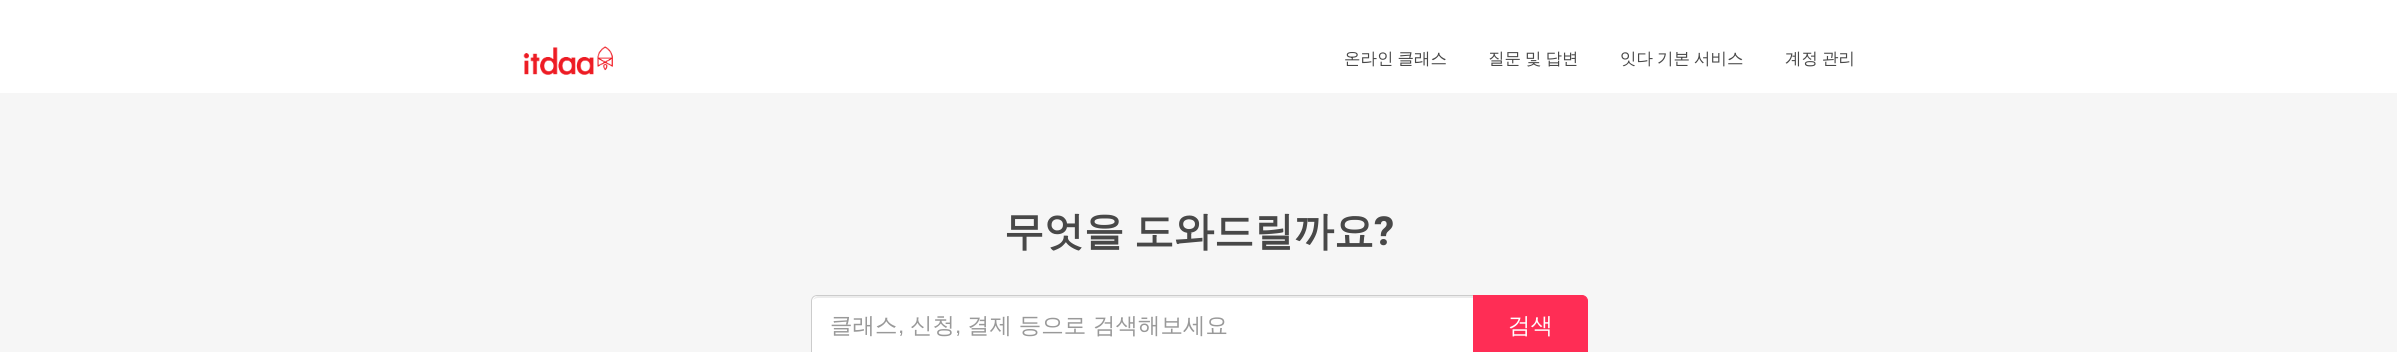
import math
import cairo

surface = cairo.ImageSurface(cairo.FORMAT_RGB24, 2397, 352)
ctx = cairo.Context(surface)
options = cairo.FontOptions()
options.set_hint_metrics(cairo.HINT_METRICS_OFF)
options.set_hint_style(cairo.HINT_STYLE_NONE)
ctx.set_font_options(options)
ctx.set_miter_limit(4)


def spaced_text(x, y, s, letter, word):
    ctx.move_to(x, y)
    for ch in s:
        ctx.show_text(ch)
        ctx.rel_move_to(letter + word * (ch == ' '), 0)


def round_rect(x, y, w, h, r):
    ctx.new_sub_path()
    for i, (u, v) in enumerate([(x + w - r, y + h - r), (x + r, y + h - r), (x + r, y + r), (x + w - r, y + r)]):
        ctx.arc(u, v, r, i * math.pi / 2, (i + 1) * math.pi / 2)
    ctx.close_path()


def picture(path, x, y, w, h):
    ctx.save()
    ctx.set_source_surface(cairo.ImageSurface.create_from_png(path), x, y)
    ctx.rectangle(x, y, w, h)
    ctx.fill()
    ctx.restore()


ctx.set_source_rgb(1, 1, 1)
ctx.paint()
picture("img1.png", 523, 46, 90, 29)
ctx.select_font_face("WenQuanYi Zen Hei Medium")
ctx.set_font_size(16.5)
ctx.set_source_rgb(0.282, 0.282, 0.282)
spaced_text(1344, 64, "온라인 클래스", 0, -1)
spaced_text(1488, 64, "질문 및 답변", 0, -1)
spaced_text(1620, 64, "잇다 기본 서비스", 0, -1)
spaced_text(1785, 64, "계정 관리", 0, -1)
ctx.set_source_rgb(0.961, 0.961, 0.961)
ctx.rectangle(0, 93, 2397, 259)
ctx.fill()
ctx.select_font_face("WenQuanYi Zen Hei", cairo.FONT_SLANT_NORMAL, cairo.FONT_WEIGHT_BOLD)
ctx.set_font_size(40)
ctx.set_source_rgb(0.282, 0.282, 0.282)
spaced_text(1004, 245, "무엇을 도와드릴까요", 0, -2)
ctx.select_font_face("Roboto ExtraBold")
ctx.move_to(1374, 245)
ctx.show_text("?")
ctx.set_source_rgb(1, 1, 1)
round_rect(811, 295, 775, 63, 6)
ctx.fill()
ctx.set_source_rgb(0.925, 0.925, 0.925)
ctx.new_path()
ctx.move_to(818, 298)
ctx.line_to(1580, 298)
ctx.curve_to(1583, 298, 1585, 300, 1585, 302)
ctx.line_to(1585, 301)
ctx.curve_to(1585, 298, 1583, 296, 1580, 296)
ctx.line_to(818, 296)
ctx.curve_to(816, 296, 814, 298, 813, 300)
ctx.curve_to(814, 299, 816, 298, 818, 298)
ctx.close_path()
ctx.fill()
round_rect(811.5, 295.5, 774, 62, 5.5)
ctx.set_source_rgb(0.8, 0.8, 0.8)
ctx.set_line_width(1)
ctx.stroke()
ctx.select_font_face("WenQuanYi Zen Hei Medium")
ctx.set_font_size(22.5)
ctx.set_source_rgb(0.6, 0.6, 0.6)
ctx.move_to(830, 333)
ctx.show_text("클래스")
ctx.select_font_face("Liberation Sans")
ctx.move_to(898, 333)
ctx.show_text(",")
ctx.select_font_face("WenQuanYi Zen Hei Medium")
ctx.move_to(910, 333)
ctx.show_text("신청")
ctx.select_font_face("Liberation Sans")
ctx.move_to(955, 333)
ctx.show_text(",")
ctx.select_font_face("WenQuanYi Zen Hei Medium")
ctx.move_to(967, 333)
ctx.show_text("결제 등으로 검색해보세요")
ctx.set_source_rgb(1, 0.176, 0.333)
ctx.new_path()
ctx.move_to(1473.5, 295.5)
ctx.line_to(1582, 295.5)
ctx.curve_to(1585, 295.5, 1587.5, 298, 1587.5, 301)
ctx.line_to(1587.5, 352)
ctx.curve_to(1587.5, 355, 1585, 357.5, 1582, 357.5)
ctx.line_to(1473.5, 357.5)
ctx.close_path()
ctx.fill_preserve()
ctx.stroke()
ctx.set_source_rgb(1, 1, 1)
ctx.move_to(1508, 333)
ctx.show_text("검색")
surface.write_to_png("page.png")
